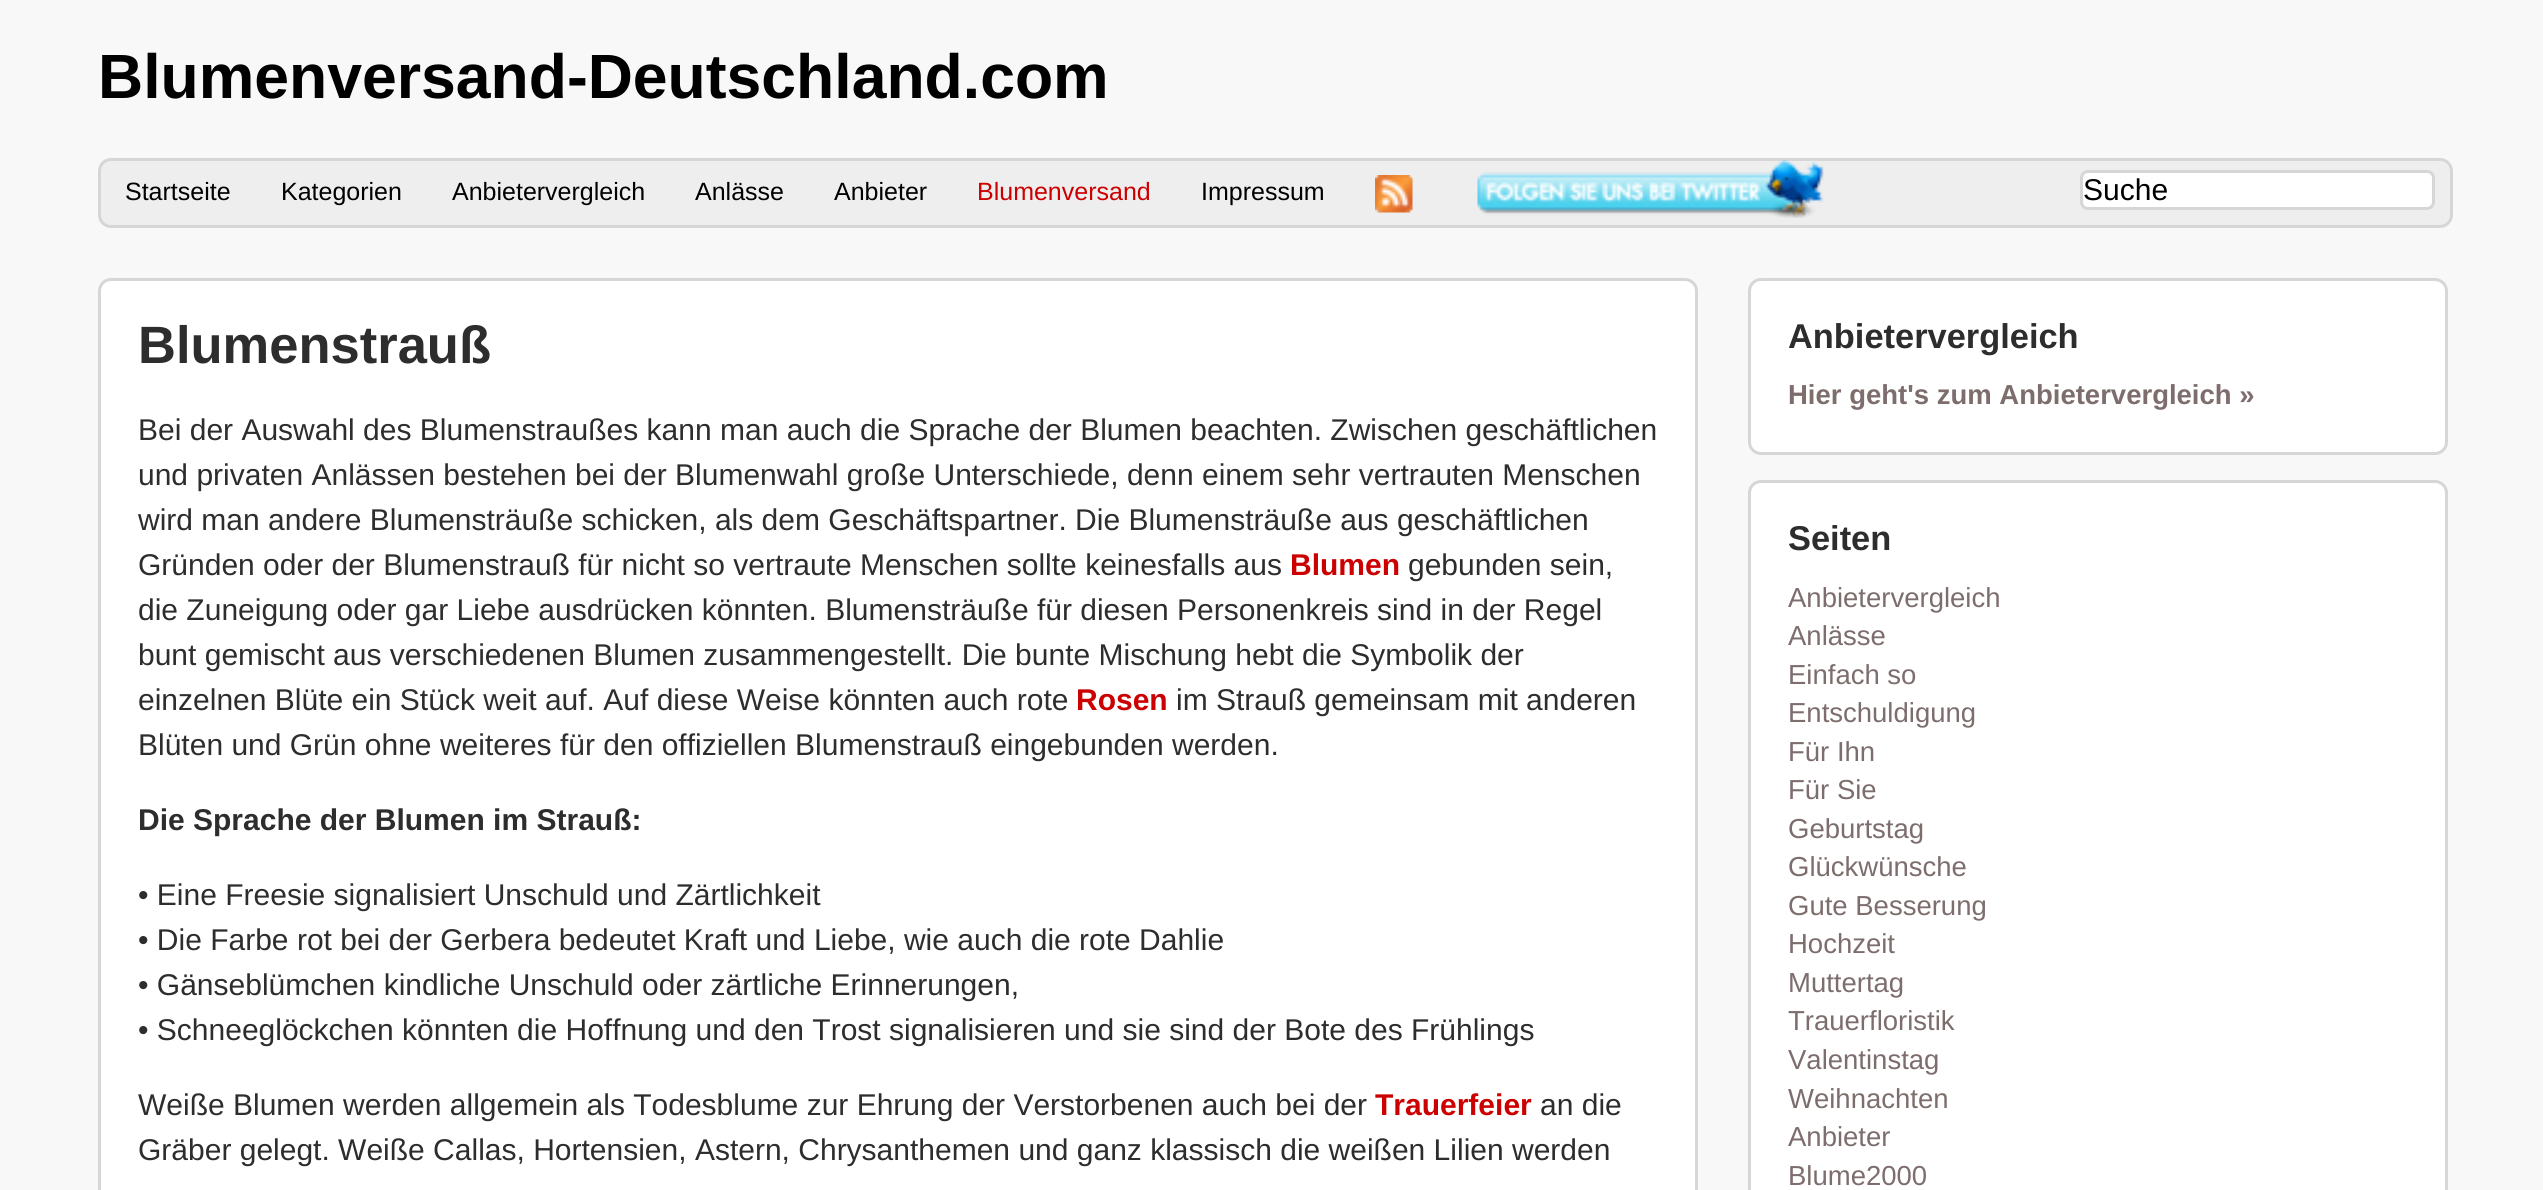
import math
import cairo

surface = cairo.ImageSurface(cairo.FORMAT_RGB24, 2543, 1190)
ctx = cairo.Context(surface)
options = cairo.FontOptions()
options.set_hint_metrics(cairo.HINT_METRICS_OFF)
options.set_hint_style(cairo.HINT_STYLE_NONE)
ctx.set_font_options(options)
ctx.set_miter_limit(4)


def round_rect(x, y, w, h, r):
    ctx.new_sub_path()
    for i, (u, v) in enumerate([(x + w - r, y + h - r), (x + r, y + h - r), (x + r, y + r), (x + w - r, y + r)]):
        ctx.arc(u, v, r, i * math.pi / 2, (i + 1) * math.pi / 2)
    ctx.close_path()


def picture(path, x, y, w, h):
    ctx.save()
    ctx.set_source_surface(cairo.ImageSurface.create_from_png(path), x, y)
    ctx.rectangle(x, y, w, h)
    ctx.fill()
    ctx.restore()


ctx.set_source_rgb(0.969, 0.969, 0.969)
ctx.paint()
ctx.select_font_face("Liberation Sans", cairo.FONT_SLANT_NORMAL, cairo.FONT_WEIGHT_BOLD)
ctx.set_font_size(62.5)
ctx.set_source_rgb(0, 0, 0)
ctx.move_to(98, 98)
ctx.show_text("Blumenversand-Deutschland.com")
ctx.set_source_rgb(0.933, 0.933, 0.933)
round_rect(99.5, 159.5, 2352, 67, 11.5)
ctx.fill_preserve()
ctx.set_source_rgb(0.839, 0.839, 0.839)
ctx.set_line_width(3)
ctx.stroke()
ctx.select_font_face("Liberation Sans")
ctx.set_font_size(25)
ctx.set_source_rgb(0, 0, 0)
ctx.move_to(125, 200)
ctx.show_text("Startseite")
ctx.move_to(281, 200)
ctx.show_text("Kategorien")
ctx.move_to(452, 200)
ctx.show_text("Anbietervergleich")
ctx.move_to(695, 200)
ctx.show_text("Anlässe")
ctx.move_to(834, 200)
ctx.show_text("Anbieter")
ctx.set_source_rgb(0.8, 0, 0)
ctx.move_to(977, 200)
ctx.show_text("Blumenversand")
ctx.set_source_rgb(0, 0, 0)
ctx.move_to(1201, 200)
ctx.show_text("Impressum")
picture("img1.png", 1375, 175, 38, 38)
picture("img2.png", 1477, 160, 347, 58)
ctx.set_source_rgb(1, 1, 1)
round_rect(2081.5, 171.5, 352, 37, 6.5)
ctx.fill_preserve()
ctx.set_source_rgb(0.839, 0.839, 0.839)
ctx.stroke()
ctx.set_font_size(30)
ctx.set_source_rgb(0, 0, 0)
ctx.move_to(2083, 200)
ctx.show_text("Suche")
ctx.set_source_rgb(1, 1, 1)
round_rect(99.5, 279.5, 1597, 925, 11.5)
ctx.fill_preserve()
ctx.set_source_rgb(0.839, 0.839, 0.839)
ctx.stroke()
ctx.select_font_face("Liberation Sans", cairo.FONT_SLANT_NORMAL, cairo.FONT_WEIGHT_BOLD)
ctx.set_font_size(52.5)
ctx.set_source_rgb(0.176, 0.176, 0.176)
ctx.move_to(138, 363)
ctx.show_text("Blumenstrauß")
ctx.select_font_face("Liberation Sans")
ctx.set_font_size(30)
ctx.move_to(138, 440)
ctx.show_text("Bei der Auswahl des Blumenstraußes kann man auch die Sprache der Blumen beachten. Zwischen geschäftlichen")
ctx.move_to(138, 485)
ctx.show_text("und privaten Anlässen bestehen bei der Blumenwahl große Unterschiede, denn einem sehr vertrauten Menschen")
ctx.move_to(138, 530)
ctx.show_text("wird man andere Blumensträuße schicken, als dem Geschäftspartner. Die Blumensträuße aus geschäftlichen")
ctx.move_to(138, 575)
ctx.show_text("Gründen oder der Blumenstrauß für nicht so vertraute Menschen sollte keinesfalls aus")
ctx.select_font_face("Liberation Sans", cairo.FONT_SLANT_NORMAL, cairo.FONT_WEIGHT_BOLD)
ctx.set_source_rgb(0.8, 0, 0)
ctx.move_to(1290, 575)
ctx.show_text("Blumen")
ctx.select_font_face("Liberation Sans")
ctx.set_source_rgb(0.176, 0.176, 0.176)
ctx.move_to(1408, 575)
ctx.show_text("gebunden sein,")
ctx.move_to(138, 620)
ctx.show_text("die Zuneigung oder gar Liebe ausdrücken könnten. Blumensträuße für diesen Personenkreis sind in der Regel")
ctx.move_to(138, 665)
ctx.show_text("bunt gemischt aus verschiedenen Blumen zusammengestellt. Die bunte Mischung hebt die Symbolik der")
ctx.move_to(138, 710)
ctx.show_text("einzelnen Blüte ein Stück weit auf. Auf diese Weise könnten auch rote")
ctx.select_font_face("Liberation Sans", cairo.FONT_SLANT_NORMAL, cairo.FONT_WEIGHT_BOLD)
ctx.set_source_rgb(0.8, 0, 0)
ctx.move_to(1076, 710)
ctx.show_text("Rosen")
ctx.select_font_face("Liberation Sans")
ctx.set_source_rgb(0.176, 0.176, 0.176)
ctx.move_to(1176, 710)
ctx.show_text("im Strauß gemeinsam mit anderen")
ctx.move_to(138, 755)
ctx.show_text("Blüten und Grün ohne weiteres für den offiziellen Blumenstrauß eingebunden werden.")
ctx.select_font_face("Liberation Sans", cairo.FONT_SLANT_NORMAL, cairo.FONT_WEIGHT_BOLD)
ctx.move_to(138, 830)
ctx.show_text("Die Sprache der Blumen im Strauß:")
ctx.select_font_face("Liberation Sans")
ctx.move_to(138, 905)
ctx.show_text("• Eine Freesie signalisiert Unschuld und Zärtlichkeit")
ctx.move_to(138, 950)
ctx.show_text("• Die Farbe rot bei der Gerbera bedeutet Kraft und Liebe, wie auch die rote Dahlie")
ctx.move_to(138, 995)
ctx.show_text("• Gänseblümchen kindliche Unschuld oder zärtliche Erinnerungen,")
ctx.move_to(138, 1040)
ctx.show_text("• Schneeglöckchen könnten die Hoffnung und den Trost signalisieren und sie sind der Bote des Frühlings")
ctx.move_to(138, 1115)
ctx.show_text("Weiße Blumen werden allgemein als Todesblume zur Ehrung der Verstorbenen auch bei der")
ctx.select_font_face("Liberation Sans", cairo.FONT_SLANT_NORMAL, cairo.FONT_WEIGHT_BOLD)
ctx.set_source_rgb(0.8, 0, 0)
ctx.move_to(1375, 1115)
ctx.show_text("Trauerfeier")
ctx.select_font_face("Liberation Sans")
ctx.set_source_rgb(0.176, 0.176, 0.176)
ctx.move_to(1540, 1115)
ctx.show_text("an die")
ctx.move_to(138, 1160)
ctx.show_text("Gräber gelegt. Weiße Callas, Hortensien, Astern, Chrysanthemen und ganz klassisch die weißen Lilien werden")
ctx.set_source_rgb(1, 1, 1)
round_rect(1749.5, 279.5, 697, 174, 11.5)
ctx.fill_preserve()
ctx.set_source_rgb(0.839, 0.839, 0.839)
ctx.stroke()
ctx.select_font_face("Liberation Sans", cairo.FONT_SLANT_NORMAL, cairo.FONT_WEIGHT_BOLD)
ctx.set_font_size(34.4)
ctx.set_source_rgb(0.176, 0.176, 0.176)
ctx.move_to(1788, 348)
ctx.show_text("Anbietervergleich")
ctx.set_font_size(27.5)
ctx.set_source_rgb(0.49, 0.427, 0.427)
ctx.move_to(1788, 404)
ctx.show_text("Hier geht's zum Anbietervergleich »")
ctx.set_source_rgb(1, 1, 1)
round_rect(1749.5, 481.5, 697, 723, 11.5)
ctx.fill_preserve()
ctx.set_source_rgb(0.839, 0.839, 0.839)
ctx.stroke()
ctx.set_font_size(34.4)
ctx.set_source_rgb(0.176, 0.176, 0.176)
ctx.move_to(1788, 550)
ctx.show_text("Seiten")
ctx.select_font_face("Liberation Sans")
ctx.set_font_size(27.5)
ctx.set_source_rgb(0.49, 0.427, 0.427)
ctx.move_to(1788, 607)
ctx.show_text("Anbietervergleich")
ctx.move_to(1788, 645)
ctx.show_text("Anlässe")
ctx.move_to(1788, 684)
ctx.show_text("Einfach so")
ctx.move_to(1788, 722)
ctx.show_text("Entschuldigung")
ctx.move_to(1788, 761)
ctx.show_text("Für Ihn")
ctx.move_to(1788, 799)
ctx.show_text("Für Sie")
ctx.move_to(1788, 838)
ctx.show_text("Geburtstag")
ctx.move_to(1788, 876)
ctx.show_text("Glückwünsche")
ctx.move_to(1788, 915)
ctx.show_text("Gute Besserung")
ctx.move_to(1788, 953)
ctx.show_text("Hochzeit")
ctx.move_to(1788, 992)
ctx.show_text("Muttertag")
ctx.move_to(1788, 1030)
ctx.show_text("Trauerfloristik")
ctx.move_to(1788, 1069)
ctx.show_text("Valentinstag")
ctx.move_to(1788, 1108)
ctx.show_text("Weihnachten")
ctx.move_to(1788, 1146)
ctx.show_text("Anbieter")
ctx.move_to(1788, 1185)
ctx.show_text("Blume2000")
surface.write_to_png("page.png")
